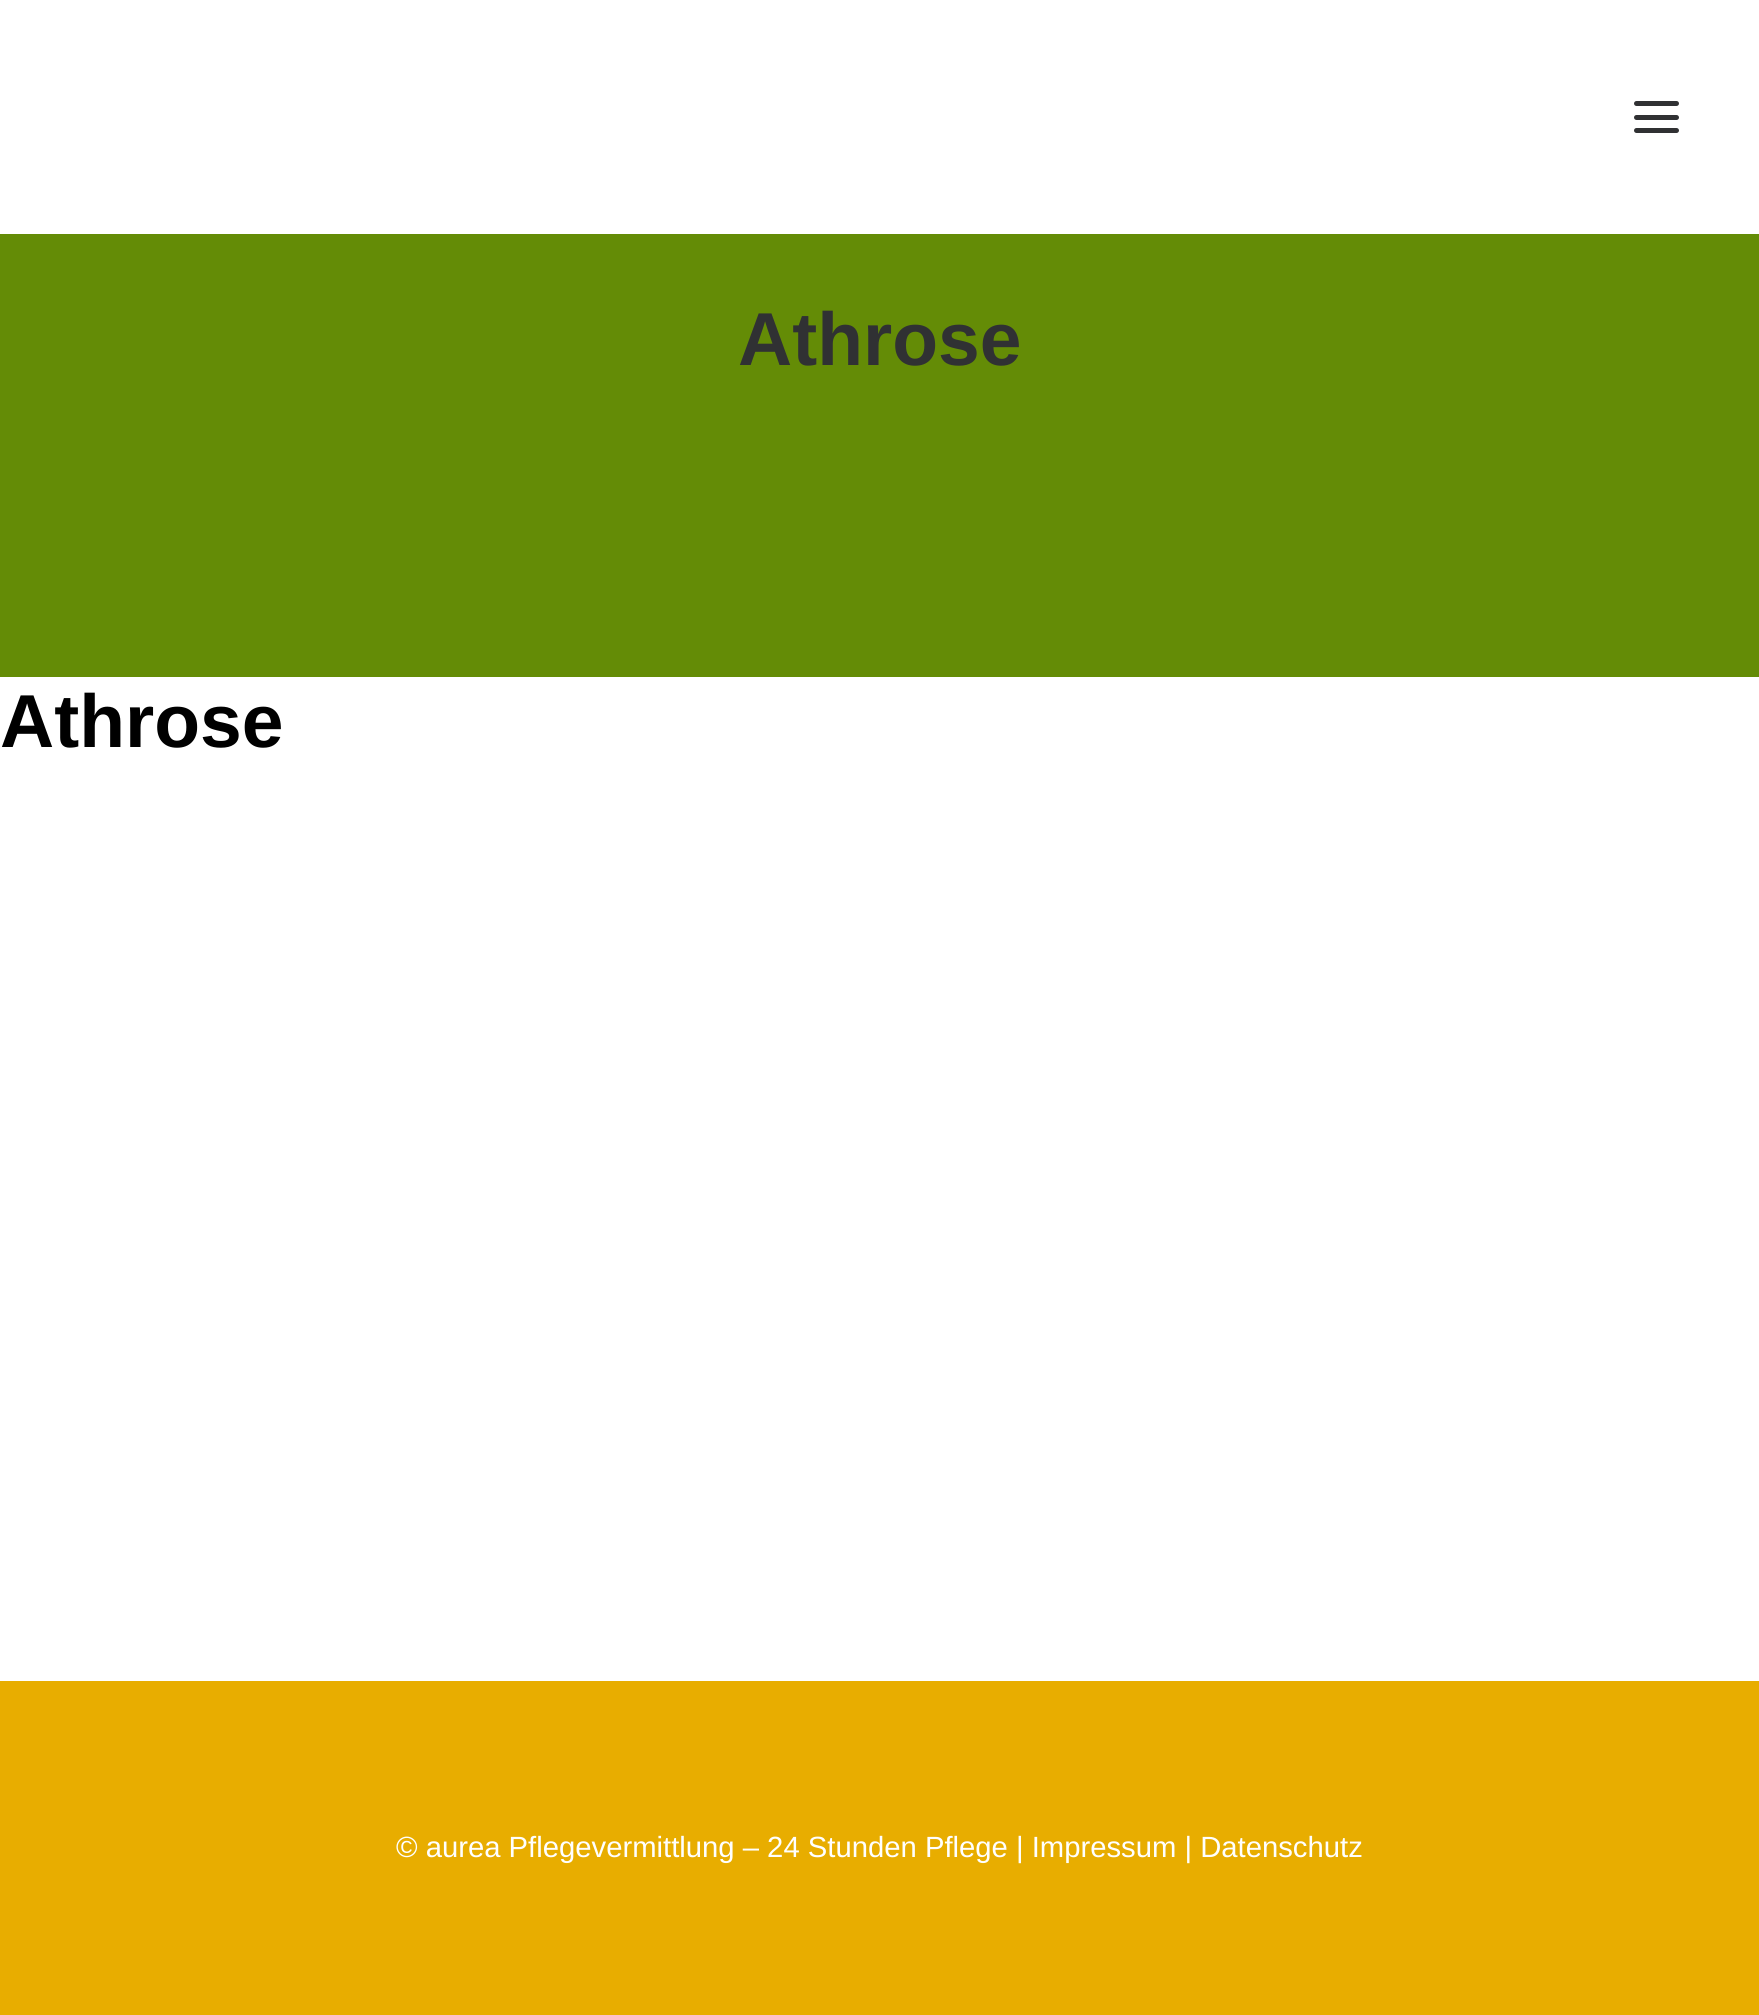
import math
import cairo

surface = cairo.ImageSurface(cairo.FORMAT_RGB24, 1759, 2015)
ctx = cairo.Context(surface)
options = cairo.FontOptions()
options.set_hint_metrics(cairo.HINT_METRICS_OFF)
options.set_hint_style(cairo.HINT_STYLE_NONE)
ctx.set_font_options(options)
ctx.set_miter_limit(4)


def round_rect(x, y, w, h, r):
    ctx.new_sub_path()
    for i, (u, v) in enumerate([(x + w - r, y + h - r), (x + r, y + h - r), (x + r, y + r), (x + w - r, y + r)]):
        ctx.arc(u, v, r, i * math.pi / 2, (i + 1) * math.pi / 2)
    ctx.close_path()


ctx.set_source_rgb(0.392, 0.549, 0.027)
ctx.paint()
ctx.set_source_rgb(1, 1, 1)
ctx.rectangle(0, 0, 1759, 234)
ctx.fill()
ctx.set_source_rgb(0.188, 0.192, 0.2)
round_rect(1634, 115, 45, 5, 2.5)
ctx.fill()
round_rect(1634, 101, 45, 5, 2.5)
ctx.fill()
round_rect(1634, 128, 45, 5, 2.5)
ctx.fill()
ctx.select_font_face("Liberation Sans", cairo.FONT_SLANT_NORMAL, cairo.FONT_WEIGHT_BOLD)
ctx.set_font_size(75)
ctx.move_to(738, 365)
ctx.show_text("Athrose")
ctx.set_source_rgb(1, 1, 1)
ctx.rectangle(0, 677, 1759, 1004)
ctx.fill()
ctx.set_source_rgb(0, 0, 0)
ctx.move_to(0, 747)
ctx.show_text("Athrose")
ctx.set_source_rgb(0.91, 0.678, 0)
ctx.rectangle(0, 1681, 1759, 334)
ctx.fill()
ctx.select_font_face("Liberation Sans")
ctx.set_font_size(29.25)
ctx.set_source_rgb(1, 1, 1)
ctx.move_to(396, 1857)
ctx.show_text("© aurea Pflegevermittlung – 24 Stunden Pflege | Impressum | Datenschutz")
surface.write_to_png("page.png")
